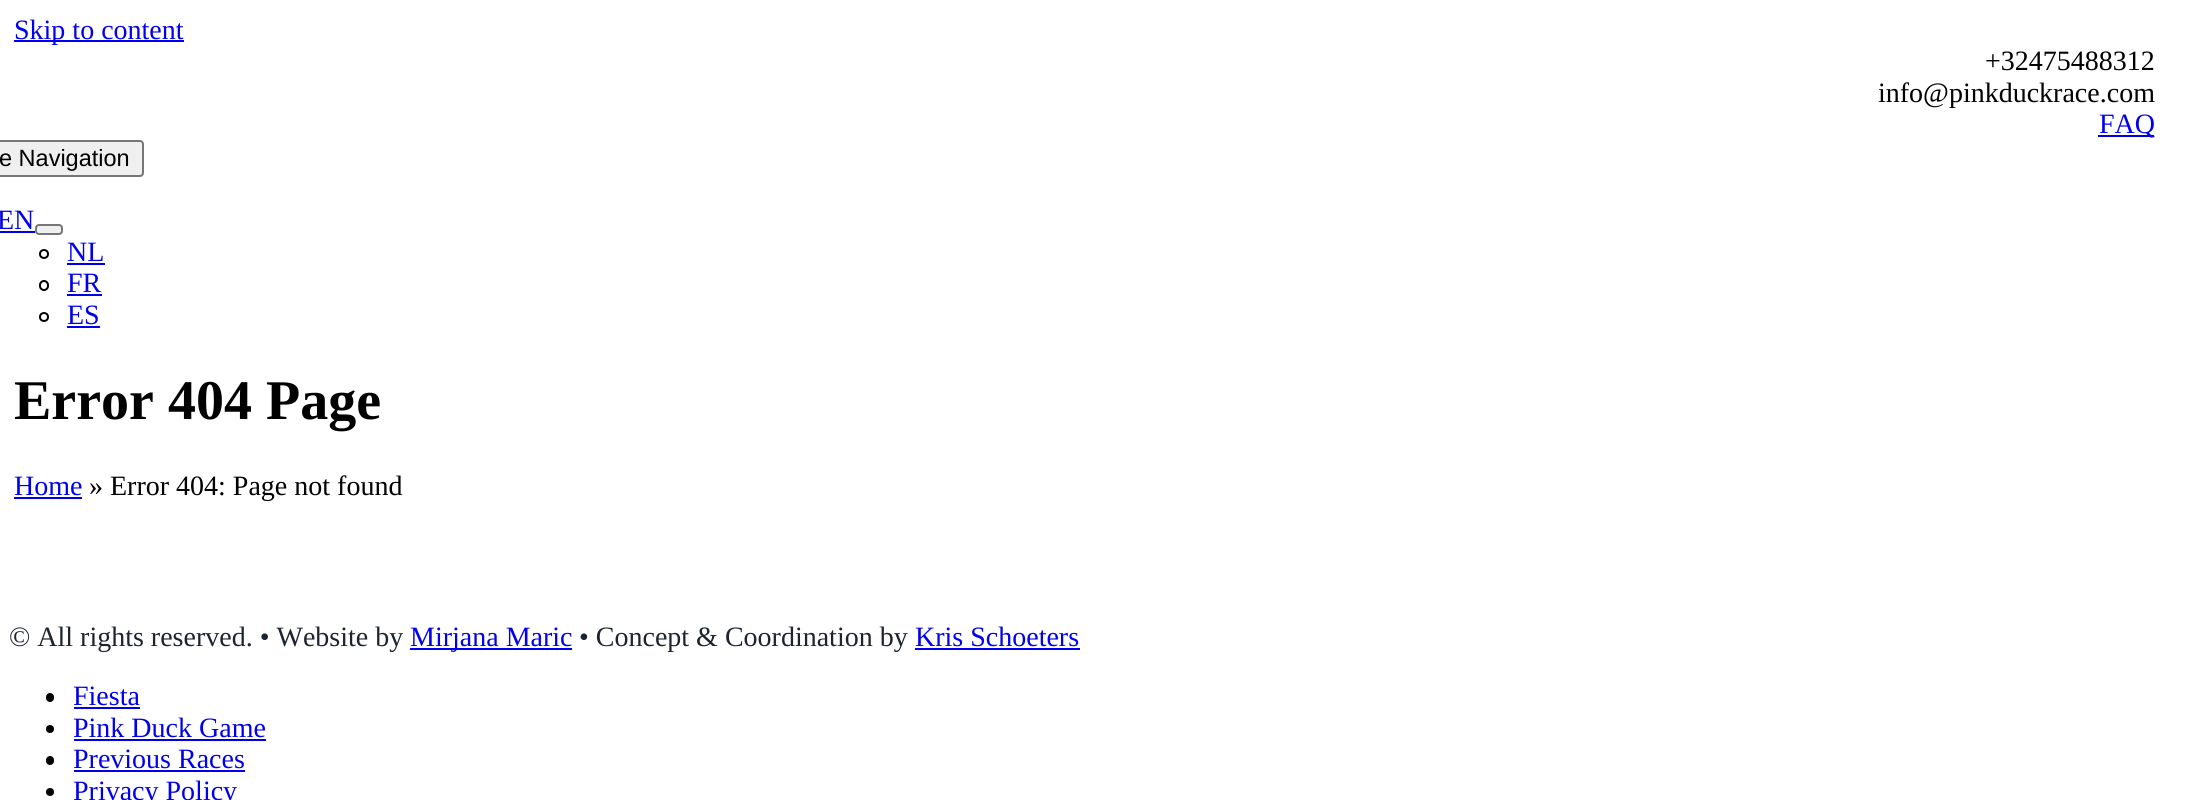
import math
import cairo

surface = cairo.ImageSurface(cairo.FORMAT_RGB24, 2199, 800)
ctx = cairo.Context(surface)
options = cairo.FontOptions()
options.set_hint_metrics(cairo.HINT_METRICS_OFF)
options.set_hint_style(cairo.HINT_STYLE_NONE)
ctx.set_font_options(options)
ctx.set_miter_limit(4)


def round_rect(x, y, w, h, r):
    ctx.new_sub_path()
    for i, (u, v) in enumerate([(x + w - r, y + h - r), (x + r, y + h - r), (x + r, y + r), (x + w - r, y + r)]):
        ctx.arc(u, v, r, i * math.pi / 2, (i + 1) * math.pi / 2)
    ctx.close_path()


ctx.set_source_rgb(1, 1, 1)
ctx.paint()
ctx.set_source_rgb(0, 0, 0.933)
ctx.rectangle(14, 40, 170, 2)
ctx.fill()
ctx.select_font_face("Liberation Serif")
ctx.set_font_size(28)
ctx.move_to(14, 39)
ctx.show_text("Skip to content")
ctx.set_source_rgb(0, 0, 0)
ctx.move_to(1985, 70)
ctx.show_text("+32475488312")
ctx.move_to(1878, 102)
ctx.show_text("info@pinkduckrace.com")
ctx.set_source_rgb(0, 0, 0.933)
ctx.rectangle(2098, 135, 56, 2)
ctx.fill()
ctx.move_to(2099, 133)
ctx.show_text("FAQ")
ctx.set_source_rgb(0.937, 0.937, 0.937)
round_rect(-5, 141, 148, 35, 3)
ctx.fill_preserve()
ctx.set_source_rgb(0.463, 0.463, 0.463)
ctx.stroke()
ctx.select_font_face("Liberation Sans")
ctx.set_font_size(23.5)
ctx.set_source_rgb(0, 0, 0)
ctx.move_to(-1, 166)
ctx.show_text("e Navigation")
ctx.select_font_face("Liberation Serif")
ctx.set_font_size(28)
ctx.set_source_rgb(0, 0, 0.933)
ctx.move_to(-3, 229)
ctx.show_text("EN")
ctx.rectangle(0, 231, 35, 2)
ctx.fill()
ctx.set_source_rgb(0.937, 0.937, 0.937)
round_rect(36, 225, 26, 9, 3)
ctx.fill_preserve()
ctx.set_source_rgb(0.463, 0.463, 0.463)
ctx.stroke()
ctx.arc(44, 254, 4, 0, 2 * math.pi)
ctx.set_source_rgb(0, 0, 0)
ctx.stroke()
ctx.set_source_rgb(0, 0, 0.933)
ctx.move_to(67, 261)
ctx.show_text("NL")
ctx.rectangle(67, 263, 38, 2)
ctx.fill()
round_rect(40, 281, 8, 9, 4)
ctx.set_source_rgb(0, 0, 0)
ctx.stroke()
ctx.set_source_rgb(0, 0, 0.933)
ctx.move_to(67, 292)
ctx.show_text("FR")
ctx.rectangle(67, 294, 35, 2)
ctx.fill()
ctx.arc(44, 317, 4, 0, 2 * math.pi)
ctx.set_source_rgb(0, 0, 0)
ctx.stroke()
ctx.set_source_rgb(0, 0, 0.933)
ctx.move_to(67, 324)
ctx.show_text("ES")
ctx.rectangle(67, 326, 33, 2)
ctx.fill()
ctx.select_font_face("Liberation Serif", cairo.FONT_SLANT_NORMAL, cairo.FONT_WEIGHT_BOLD)
ctx.set_font_size(56)
ctx.set_source_rgb(0, 0, 0)
ctx.move_to(14, 419)
ctx.show_text("Error 404 Page")
ctx.select_font_face("Liberation Serif")
ctx.set_font_size(28)
ctx.set_source_rgb(0, 0, 0.933)
ctx.move_to(14, 495)
ctx.show_text("Home")
ctx.rectangle(14, 497, 68, 2)
ctx.fill()
ctx.set_source_rgb(0, 0, 0)
ctx.move_to(89, 495)
ctx.show_text("» Error 404: Page not found")
ctx.set_source_rgb(0.114, 0.141, 0.176)
ctx.move_to(9, 646)
ctx.show_text("© All rights reserved. • Website by")
ctx.set_source_rgb(0, 0, 0.933)
ctx.rectangle(410, 648, 162, 2)
ctx.fill()
ctx.move_to(410, 646)
ctx.show_text("Mirjana Maric")
ctx.set_source_rgb(0.114, 0.141, 0.176)
ctx.move_to(579, 646)
ctx.show_text("• Concept & Coordination by")
ctx.set_source_rgb(0, 0, 0.933)
ctx.move_to(915, 646)
ctx.show_text("Kris Schoeters")
ctx.rectangle(915, 648, 165, 2)
ctx.fill()
ctx.set_source_rgb(0, 0, 0)
round_rect(46, 693, 8, 9, 4)
ctx.fill()
ctx.set_source_rgb(0, 0, 0.933)
ctx.move_to(73, 705)
ctx.show_text("Fiesta")
ctx.rectangle(74, 707, 66, 2)
ctx.fill()
ctx.set_source_rgb(0, 0, 0)
ctx.arc(50, 729, 4, 0, 2 * math.pi)
ctx.fill()
ctx.set_source_rgb(0, 0, 0.933)
ctx.move_to(73, 737)
ctx.show_text("Pink Duck Game")
ctx.rectangle(74, 739, 192, 2)
ctx.fill()
ctx.set_source_rgb(0, 0, 0)
round_rect(46, 756, 8, 9, 4)
ctx.fill()
ctx.set_source_rgb(0, 0, 0.933)
ctx.move_to(73, 768)
ctx.show_text("Previous Races")
ctx.rectangle(74, 770, 171, 2)
ctx.fill()
ctx.set_source_rgb(0, 0, 0)
ctx.arc(50, 792, 4, 0, 2 * math.pi)
ctx.fill()
ctx.set_source_rgb(0, 0, 0.933)
ctx.move_to(73, 800)
ctx.show_text("Privacy Policy")
surface.write_to_png("page.png")
